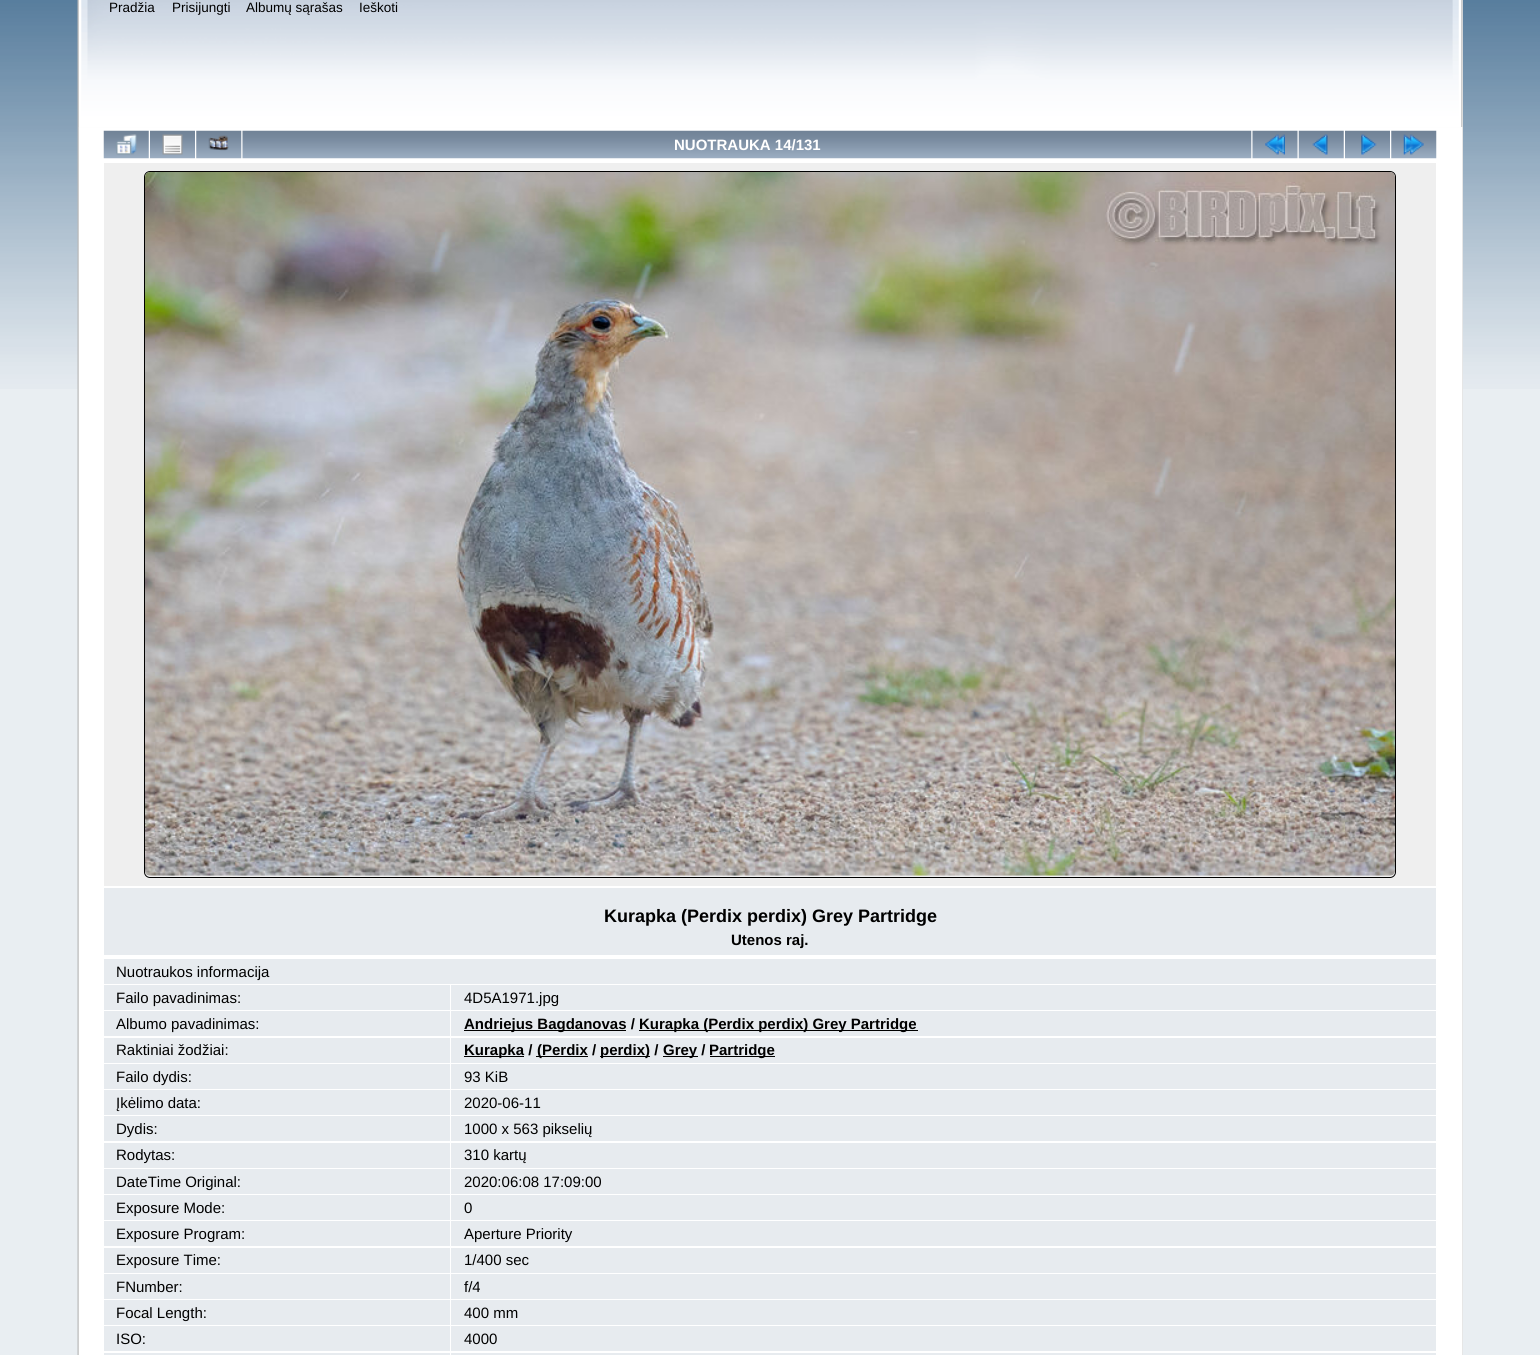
import math
import cairo

surface = cairo.ImageSurface(cairo.FORMAT_RGB24, 1540, 1355)
ctx = cairo.Context(surface)
options = cairo.FontOptions()
options.set_hint_metrics(cairo.HINT_METRICS_OFF)
options.set_hint_style(cairo.HINT_STYLE_NONE)
ctx.set_font_options(options)
ctx.set_miter_limit(4)


def round_rect(x, y, w, h, r):
    ctx.new_sub_path()
    for i, (u, v) in enumerate([(x + w - r, y + h - r), (x + r, y + h - r), (x + r, y + r), (x + w - r, y + r)]):
        ctx.arc(u, v, r, i * math.pi / 2, (i + 1) * math.pi / 2)
    ctx.close_path()


def picture(path, x, y, w, h):
    ctx.save()
    ctx.set_source_surface(cairo.ImageSurface.create_from_png(path), x, y)
    ctx.rectangle(x, y, w, h)
    ctx.fill()
    ctx.restore()


ctx.set_source_rgb(0.914, 0.933, 0.949)
ctx.paint()
picture("img1.png", 0, 0, 1540, 389)
ctx.set_source_rgb(0.996, 0.996, 0.996)
ctx.rectangle(79, 0, 1384, 128)
ctx.fill()
picture("img2.png", 77, 0, 1386, 127)
picture("img3.png", 1452, 0, 11, 127)
ctx.select_font_face("Liberation Sans")
ctx.set_font_size(13.5)
ctx.set_source_rgb(0, 0, 0)
ctx.move_to(109, 12)
ctx.show_text("Pradžia")
ctx.move_to(172, 12)
ctx.show_text("Prisijungti")
ctx.move_to(246, 12)
ctx.show_text("Albumų sąrašas")
ctx.move_to(359, 12)
ctx.show_text("Ieškoti")
ctx.set_source_rgb(1, 1, 1)
ctx.rectangle(79, 128, 1383, 1227)
ctx.fill()
picture("img4.png", 77, 127, 2, 1228)
ctx.set_source_rgb(0.902, 0.902, 0.902)
ctx.rectangle(1462, 127, 1, 1228)
ctx.fill()
picture("img5.png", 103, 130, 46, 29)
picture("img6.png", 116, 134, 21, 21)
picture("img7.png", 150, 130, 45, 29)
picture("img8.png", 162, 134, 21, 21)
picture("img9.png", 196, 130, 46, 29)
picture("img10.png", 208, 135, 21, 16)
picture("img11.png", 242, 130, 1010, 29)
ctx.select_font_face("Liberation Sans", cairo.FONT_SLANT_NORMAL, cairo.FONT_WEIGHT_BOLD)
ctx.set_font_size(15)
ctx.set_source_rgb(1, 1, 1)
ctx.move_to(674, 150)
ctx.show_text("NUOTRAUKA 14/131")
picture("img12.png", 1252, 130, 46, 29)
picture("img13.png", 1265, 134, 20, 21)
picture("img5.png", 1298, 130, 46, 29)
picture("img14.png", 1312, 134, 16, 21)
picture("img7.png", 1345, 130, 45, 29)
picture("img15.png", 1361, 134, 16, 21)
picture("img9.png", 1391, 130, 46, 29)
picture("img16.png", 1403, 134, 21, 21)
ctx.set_source_rgb(0.937, 0.937, 0.937)
ctx.rectangle(104, 163, 1332, 723)
ctx.fill()
round_rect(144.5, 171.5, 1251, 706, 5.5)
ctx.set_source_rgb(0, 0, 0)
ctx.set_line_width(1)
ctx.stroke()
picture("img17.png", 145, 172, 1250, 704)
ctx.set_source_rgb(0.906, 0.918, 0.937)
ctx.rectangle(104, 888, 1332, 67)
ctx.fill()
ctx.set_font_size(18)
ctx.set_source_rgb(0, 0, 0)
ctx.move_to(604, 922)
ctx.show_text("Kurapka (Perdix perdix) Grey Partridge")
ctx.set_font_size(15)
ctx.move_to(731, 945)
ctx.show_text("Utenos raj.")
ctx.set_source_rgb(0.906, 0.918, 0.937)
ctx.rectangle(104, 959, 1332, 25)
ctx.fill()
ctx.select_font_face("Liberation Sans")
ctx.set_source_rgb(0, 0, 0)
ctx.move_to(116, 977)
ctx.show_text("Nuotraukos informacija")
ctx.set_source_rgb(0.906, 0.918, 0.937)
ctx.rectangle(104, 985, 346, 25)
ctx.fill()
ctx.set_source_rgb(0, 0, 0)
ctx.move_to(116, 1003)
ctx.show_text("Failo pavadinimas:")
ctx.set_source_rgb(0.906, 0.918, 0.937)
ctx.rectangle(451, 985, 985, 25)
ctx.fill()
ctx.set_source_rgb(0, 0, 0)
ctx.move_to(464, 1003)
ctx.show_text("4D5A1971.jpg")
ctx.set_source_rgb(0.906, 0.918, 0.937)
ctx.rectangle(104, 1011, 346, 25)
ctx.fill()
ctx.set_source_rgb(0, 0, 0)
ctx.move_to(116, 1029)
ctx.show_text("Albumo pavadinimas:")
ctx.set_source_rgb(0.906, 0.918, 0.937)
ctx.rectangle(451, 1011, 985, 25)
ctx.fill()
ctx.set_source_rgb(0, 0, 0)
ctx.rectangle(464, 1030, 162, 1)
ctx.fill()
ctx.select_font_face("Liberation Sans", cairo.FONT_SLANT_NORMAL, cairo.FONT_WEIGHT_BOLD)
ctx.move_to(464, 1029)
ctx.show_text("Andriejus Bagdanovas /")
ctx.rectangle(639, 1030, 279, 1)
ctx.fill()
ctx.move_to(639, 1029)
ctx.show_text("Kurapka (Perdix perdix) Grey Partridge")
ctx.set_source_rgb(0.906, 0.918, 0.937)
ctx.rectangle(104, 1038, 346, 25)
ctx.fill()
ctx.select_font_face("Liberation Sans")
ctx.set_source_rgb(0, 0, 0)
ctx.move_to(116, 1055)
ctx.show_text("Raktiniai žodžiai:")
ctx.set_source_rgb(0.906, 0.918, 0.937)
ctx.rectangle(451, 1038, 985, 25)
ctx.fill()
ctx.set_source_rgb(0, 0, 0)
ctx.rectangle(464, 1056, 60, 1)
ctx.fill()
ctx.select_font_face("Liberation Sans", cairo.FONT_SLANT_NORMAL, cairo.FONT_WEIGHT_BOLD)
ctx.move_to(464, 1055)
ctx.show_text("Kurapka /")
ctx.rectangle(536, 1056, 52, 1)
ctx.fill()
ctx.move_to(537, 1055)
ctx.show_text("(Perdix /")
ctx.rectangle(600, 1056, 50, 1)
ctx.fill()
ctx.move_to(600, 1055)
ctx.show_text("perdix) /")
ctx.rectangle(663, 1056, 35, 1)
ctx.fill()
ctx.move_to(663, 1055)
ctx.show_text("Grey /")
ctx.rectangle(710, 1056, 65, 1)
ctx.fill()
ctx.move_to(709, 1055)
ctx.show_text("Partridge")
ctx.set_source_rgb(0.906, 0.918, 0.937)
ctx.rectangle(104, 1064, 346, 25)
ctx.fill()
ctx.select_font_face("Liberation Sans")
ctx.set_source_rgb(0, 0, 0)
ctx.move_to(116, 1082)
ctx.show_text("Failo dydis:")
ctx.set_source_rgb(0.906, 0.918, 0.937)
ctx.rectangle(451, 1064, 985, 25)
ctx.fill()
ctx.set_source_rgb(0, 0, 0)
ctx.move_to(464, 1082)
ctx.show_text("93 KiB")
ctx.set_source_rgb(0.906, 0.918, 0.937)
ctx.rectangle(104, 1090, 346, 25)
ctx.fill()
ctx.set_source_rgb(0, 0, 0)
ctx.move_to(116, 1108)
ctx.show_text("Įkėlimo data:")
ctx.set_source_rgb(0.906, 0.918, 0.937)
ctx.rectangle(451, 1090, 985, 25)
ctx.fill()
ctx.set_source_rgb(0, 0, 0)
ctx.move_to(464, 1108)
ctx.show_text("2020-06-11")
ctx.set_source_rgb(0.906, 0.918, 0.937)
ctx.rectangle(104, 1116, 346, 25)
ctx.fill()
ctx.set_source_rgb(0, 0, 0)
ctx.move_to(116, 1134)
ctx.show_text("Dydis:")
ctx.set_source_rgb(0.906, 0.918, 0.937)
ctx.rectangle(451, 1116, 985, 25)
ctx.fill()
ctx.set_source_rgb(0, 0, 0)
ctx.move_to(464, 1134)
ctx.show_text("1000 x 563 pikselių")
ctx.set_source_rgb(0.906, 0.918, 0.937)
ctx.rectangle(104, 1143, 346, 25)
ctx.fill()
ctx.set_source_rgb(0, 0, 0)
ctx.move_to(116, 1160)
ctx.show_text("Rodytas:")
ctx.set_source_rgb(0.906, 0.918, 0.937)
ctx.rectangle(451, 1143, 985, 25)
ctx.fill()
ctx.set_source_rgb(0, 0, 0)
ctx.move_to(464, 1160)
ctx.show_text("310 kartų")
ctx.set_source_rgb(0.906, 0.918, 0.937)
ctx.rectangle(104, 1169, 346, 25)
ctx.fill()
ctx.set_source_rgb(0, 0, 0)
ctx.move_to(116, 1187)
ctx.show_text("DateTime Original:")
ctx.set_source_rgb(0.906, 0.918, 0.937)
ctx.rectangle(451, 1169, 985, 25)
ctx.fill()
ctx.set_source_rgb(0, 0, 0)
ctx.move_to(464, 1187)
ctx.show_text("2020:06:08 17:09:00")
ctx.set_source_rgb(0.906, 0.918, 0.937)
ctx.rectangle(104, 1195, 346, 25)
ctx.fill()
ctx.set_source_rgb(0, 0, 0)
ctx.move_to(116, 1213)
ctx.show_text("Exposure Mode:")
ctx.set_source_rgb(0.906, 0.918, 0.937)
ctx.rectangle(451, 1195, 985, 25)
ctx.fill()
ctx.set_source_rgb(0, 0, 0)
ctx.move_to(464, 1213)
ctx.show_text("0")
ctx.set_source_rgb(0.906, 0.918, 0.937)
ctx.rectangle(104, 1221, 346, 25)
ctx.fill()
ctx.set_source_rgb(0, 0, 0)
ctx.move_to(116, 1239)
ctx.show_text("Exposure Program:")
ctx.set_source_rgb(0.906, 0.918, 0.937)
ctx.rectangle(451, 1221, 985, 25)
ctx.fill()
ctx.set_source_rgb(0, 0, 0)
ctx.move_to(464, 1239)
ctx.show_text("Aperture Priority")
ctx.set_source_rgb(0.906, 0.918, 0.937)
ctx.rectangle(104, 1248, 346, 25)
ctx.fill()
ctx.set_source_rgb(0, 0, 0)
ctx.move_to(116, 1265)
ctx.show_text("Exposure Time:")
ctx.set_source_rgb(0.906, 0.918, 0.937)
ctx.rectangle(451, 1248, 985, 25)
ctx.fill()
ctx.set_source_rgb(0, 0, 0)
ctx.move_to(464, 1265)
ctx.show_text("1/400 sec")
ctx.set_source_rgb(0.906, 0.918, 0.937)
ctx.rectangle(104, 1274, 346, 25)
ctx.fill()
ctx.set_source_rgb(0, 0, 0)
ctx.move_to(116, 1292)
ctx.show_text("FNumber:")
ctx.set_source_rgb(0.906, 0.918, 0.937)
ctx.rectangle(451, 1274, 985, 25)
ctx.fill()
ctx.set_source_rgb(0, 0, 0)
ctx.move_to(464, 1292)
ctx.show_text("f/4")
ctx.set_source_rgb(0.906, 0.918, 0.937)
ctx.rectangle(104, 1300, 346, 25)
ctx.fill()
ctx.set_source_rgb(0, 0, 0)
ctx.move_to(116, 1318)
ctx.show_text("Focal Length:")
ctx.set_source_rgb(0.906, 0.918, 0.937)
ctx.rectangle(451, 1300, 985, 25)
ctx.fill()
ctx.set_source_rgb(0, 0, 0)
ctx.move_to(464, 1318)
ctx.show_text("400 mm")
ctx.set_source_rgb(0.906, 0.918, 0.937)
ctx.rectangle(104, 1326, 346, 25)
ctx.fill()
ctx.set_source_rgb(0, 0, 0)
ctx.move_to(116, 1344)
ctx.show_text("ISO:")
ctx.set_source_rgb(0.906, 0.918, 0.937)
ctx.rectangle(451, 1326, 985, 25)
ctx.fill()
ctx.set_source_rgb(0, 0, 0)
ctx.move_to(464, 1344)
ctx.show_text("4000")
ctx.set_source_rgb(0.906, 0.918, 0.937)
ctx.rectangle(104, 1353, 346, 2)
ctx.fill()
ctx.rectangle(451, 1353, 985, 2)
ctx.fill()
surface.write_to_png("page.png")
